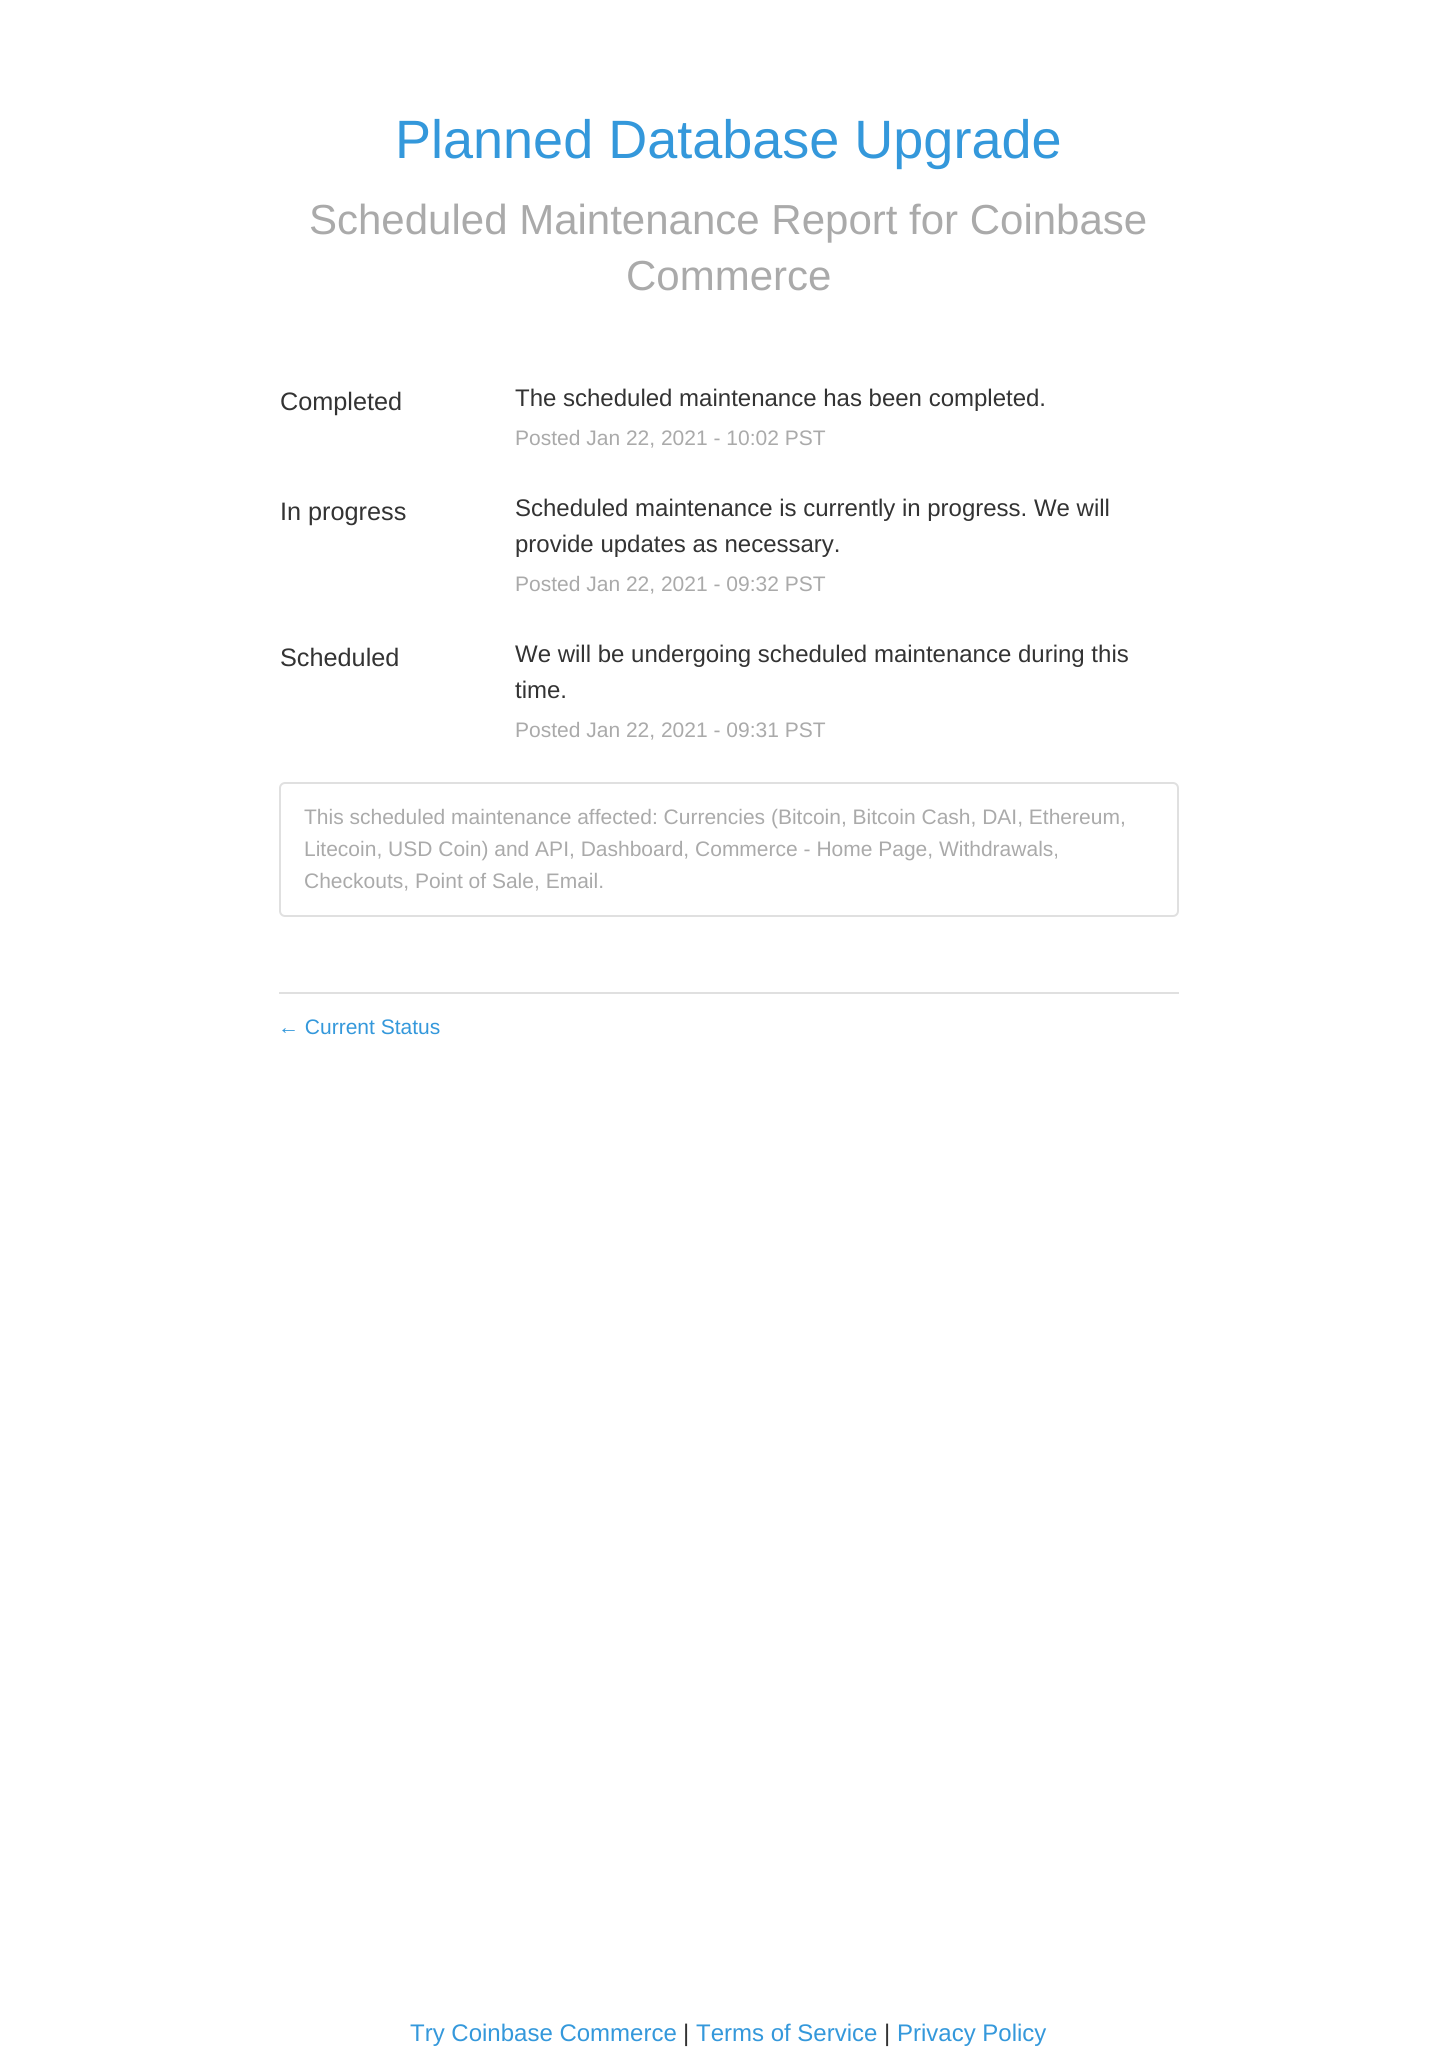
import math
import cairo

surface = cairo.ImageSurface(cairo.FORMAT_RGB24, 1456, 2051)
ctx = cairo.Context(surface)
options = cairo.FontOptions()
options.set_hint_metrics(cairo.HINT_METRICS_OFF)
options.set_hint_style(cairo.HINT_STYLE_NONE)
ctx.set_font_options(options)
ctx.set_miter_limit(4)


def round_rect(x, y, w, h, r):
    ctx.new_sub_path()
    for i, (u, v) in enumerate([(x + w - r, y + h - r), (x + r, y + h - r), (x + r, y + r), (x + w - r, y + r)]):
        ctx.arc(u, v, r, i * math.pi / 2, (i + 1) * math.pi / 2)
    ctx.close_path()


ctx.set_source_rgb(1, 1, 1)
ctx.paint()
ctx.select_font_face("Liberation Sans")
ctx.set_font_size(54)
ctx.set_source_rgb(0.204, 0.596, 0.859)
ctx.move_to(395, 158)
ctx.show_text("Planned Database Upgrade")
ctx.set_font_size(42)
ctx.set_source_rgb(0.667, 0.667, 0.667)
ctx.move_to(309, 234)
ctx.show_text("Scheduled Maintenance Report for Coinbase")
ctx.move_to(626, 290)
ctx.show_text("Commerce")
ctx.set_font_size(25.25)
ctx.set_source_rgb(0.2, 0.2, 0.2)
ctx.move_to(280, 410)
ctx.show_text("Completed")
ctx.set_font_size(24)
ctx.move_to(515, 406)
ctx.show_text("The scheduled maintenance has been completed.")
ctx.set_font_size(21)
ctx.set_source_rgb(0.667, 0.667, 0.667)
ctx.move_to(515, 445)
ctx.show_text("Posted Jan 22, 2021 - 10:02 PST")
ctx.set_font_size(25.25)
ctx.set_source_rgb(0.2, 0.2, 0.2)
ctx.move_to(280, 520)
ctx.show_text("In progress")
ctx.set_font_size(24)
ctx.move_to(515, 516)
ctx.show_text("Scheduled maintenance is currently in progress. We will")
ctx.move_to(515, 552)
ctx.show_text("provide updates as necessary.")
ctx.set_font_size(21)
ctx.set_source_rgb(0.667, 0.667, 0.667)
ctx.move_to(515, 591)
ctx.show_text("Posted Jan 22, 2021 - 09:32 PST")
ctx.set_font_size(25.25)
ctx.set_source_rgb(0.2, 0.2, 0.2)
ctx.move_to(280, 666)
ctx.show_text("Scheduled")
ctx.set_font_size(24)
ctx.move_to(515, 662)
ctx.show_text("We will be undergoing scheduled maintenance during this")
ctx.move_to(515, 698)
ctx.show_text("time.")
ctx.set_font_size(21)
ctx.set_source_rgb(0.667, 0.667, 0.667)
ctx.move_to(515, 737)
ctx.show_text("Posted Jan 22, 2021 - 09:31 PST")
round_rect(280, 783, 898, 133, 5)
ctx.set_source_rgb(0.878, 0.878, 0.878)
ctx.stroke()
ctx.set_source_rgb(0.667, 0.667, 0.667)
ctx.move_to(304, 824)
ctx.show_text("This scheduled maintenance affected: Currencies (Bitcoin, Bitcoin Cash, DAI, Ethereum,")
ctx.move_to(304, 856)
ctx.show_text("Litecoin, USD Coin) and API, Dashboard, Commerce - Home Page, Withdrawals,")
ctx.move_to(304, 888)
ctx.show_text("Checkouts, Point of Sale, Email.")
ctx.set_source_rgb(0.878, 0.878, 0.878)
ctx.rectangle(279, 992, 900, 2)
ctx.fill()
ctx.set_source_rgb(0.204, 0.596, 0.859)
ctx.move_to(278, 1034)
ctx.show_text("← Current Status")
ctx.set_font_size(24)
ctx.move_to(410, 2041)
ctx.show_text("Try Coinbase Commerce")
ctx.set_source_rgb(0.2, 0.2, 0.2)
ctx.move_to(683, 2041)
ctx.show_text("|")
ctx.set_source_rgb(0.204, 0.596, 0.859)
ctx.move_to(696, 2041)
ctx.show_text("Terms of Service")
ctx.set_source_rgb(0.2, 0.2, 0.2)
ctx.move_to(884, 2041)
ctx.show_text("|")
ctx.set_source_rgb(0.204, 0.596, 0.859)
ctx.move_to(897, 2041)
ctx.show_text("Privacy Policy")
surface.write_to_png("page.png")
